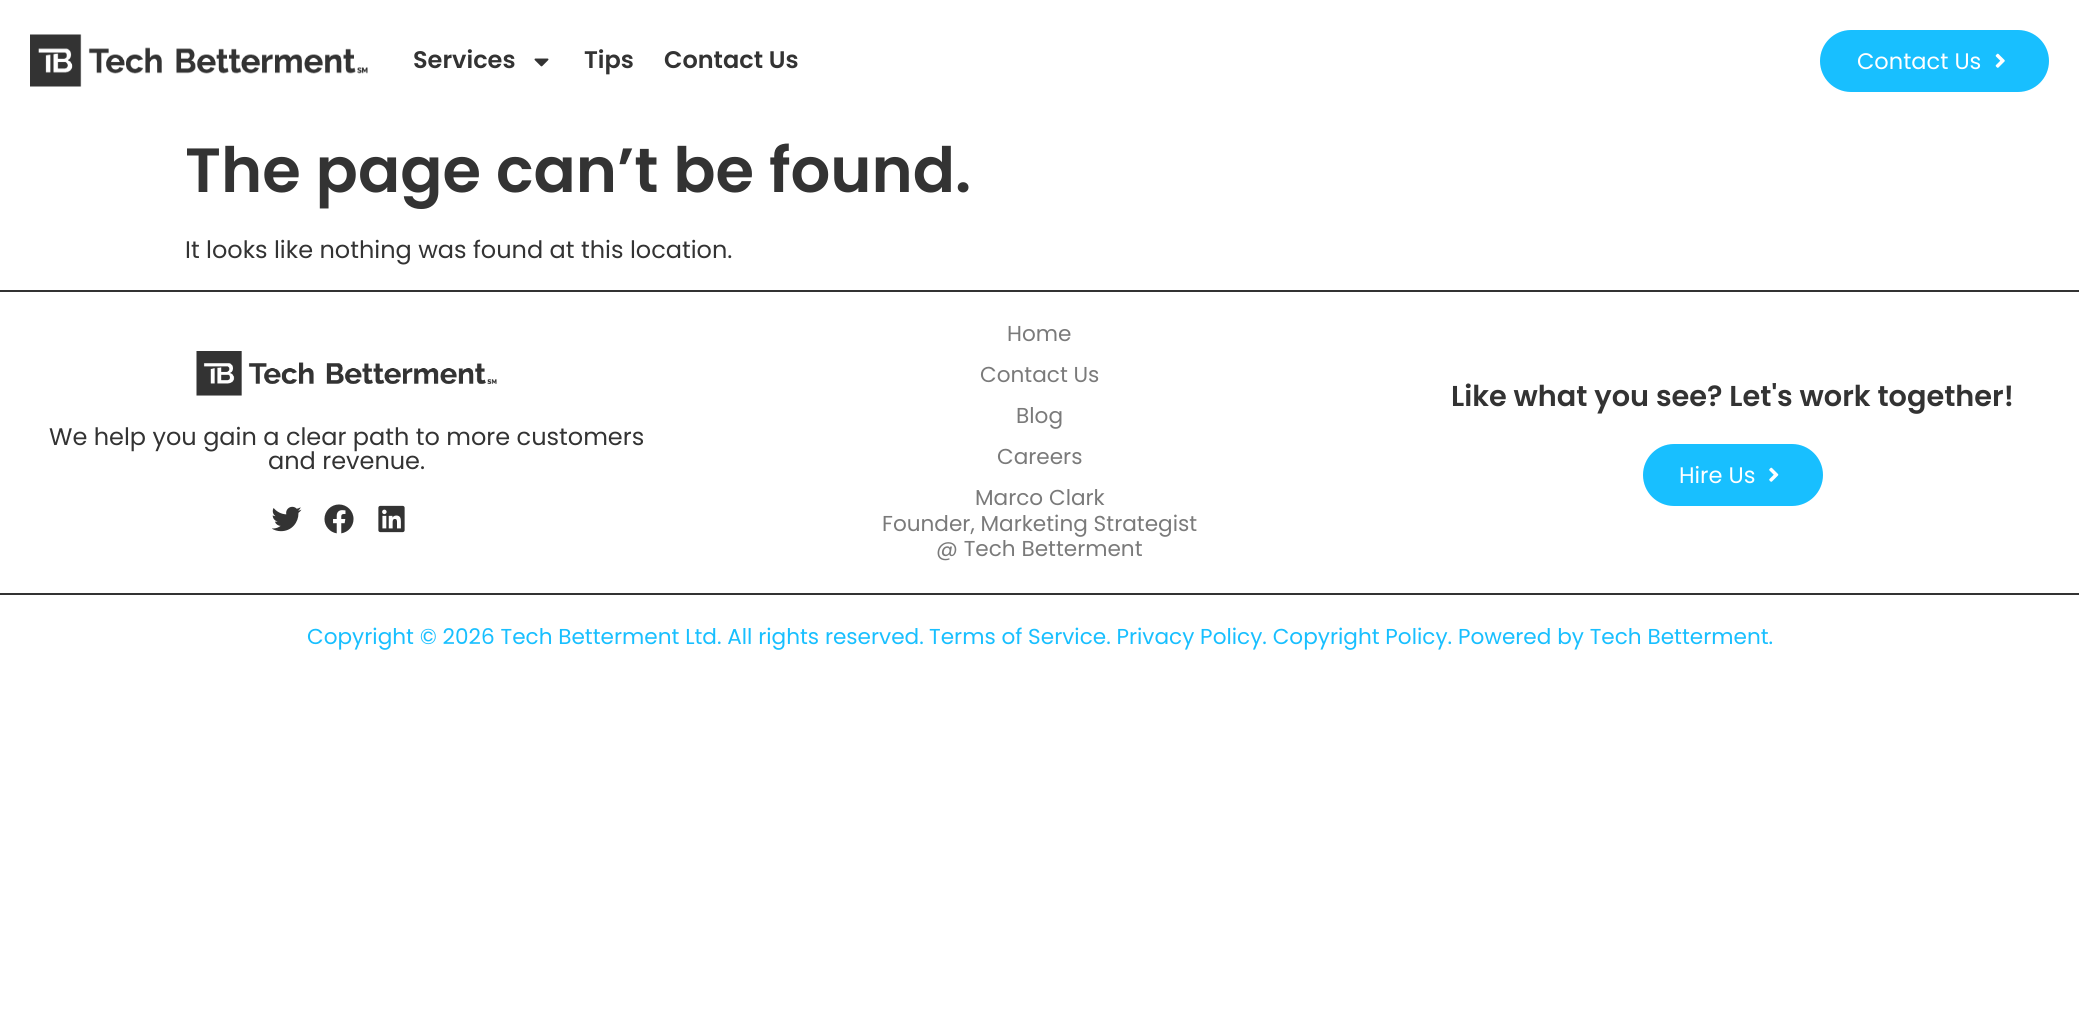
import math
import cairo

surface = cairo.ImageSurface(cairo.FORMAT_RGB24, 2079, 1024)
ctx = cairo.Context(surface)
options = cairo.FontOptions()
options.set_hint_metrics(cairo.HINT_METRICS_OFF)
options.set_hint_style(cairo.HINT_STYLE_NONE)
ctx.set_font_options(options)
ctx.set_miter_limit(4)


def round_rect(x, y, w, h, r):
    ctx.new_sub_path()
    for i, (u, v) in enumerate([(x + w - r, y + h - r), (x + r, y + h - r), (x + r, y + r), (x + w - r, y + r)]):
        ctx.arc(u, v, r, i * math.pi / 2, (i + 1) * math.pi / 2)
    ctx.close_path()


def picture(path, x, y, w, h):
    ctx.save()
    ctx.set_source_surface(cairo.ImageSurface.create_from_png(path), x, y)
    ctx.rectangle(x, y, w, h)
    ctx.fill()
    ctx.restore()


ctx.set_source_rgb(1, 1, 1)
ctx.paint()
picture("img1.png", 30, 34, 338, 53)
ctx.select_font_face("Poppins SemiBold")
ctx.set_font_size(24)
ctx.set_source_rgb(0.2, 0.2, 0.2)
ctx.move_to(413, 68)
ctx.show_text("Services")
picture("img2.png", 534, 58, 15, 9)
ctx.move_to(584, 68)
ctx.show_text("Tips")
ctx.move_to(664, 68)
ctx.show_text("Contact Us")
ctx.set_source_rgb(0.094, 0.749, 1)
round_rect(1821, 31, 227, 60, 30)
ctx.fill_preserve()
ctx.stroke()
ctx.select_font_face("Poppins")
ctx.set_font_size(22.5)
ctx.set_source_rgb(1, 1, 1)
ctx.move_to(1857, 69)
ctx.show_text("Contact Us")
picture("img3.png", 1995, 53, 10, 15)
ctx.select_font_face("Poppins SemiBold")
ctx.set_font_size(62.4)
ctx.set_source_rgb(0.2, 0.2, 0.2)
ctx.move_to(185, 192)
ctx.show_text("The page can’t be found.")
ctx.select_font_face("Poppins")
ctx.set_font_size(24)
ctx.move_to(185, 258)
ctx.show_text("It looks like nothing was found at this location.")
ctx.rectangle(0, 290, 2079, 2)
ctx.fill()
picture("img4.png", 196, 351, 301, 45)
ctx.move_to(49, 445)
ctx.show_text("We help you gain a clear path to more customers")
ctx.move_to(268, 469)
ctx.show_text("and revenue.")
picture("img5.png", 272, 506, 30, 26)
picture("img6.png", 324, 504, 30, 30)
picture("img7.png", 378, 505, 27, 28)
ctx.set_font_size(21.6)
ctx.set_source_rgb(0.478, 0.478, 0.478)
ctx.move_to(1007, 341)
ctx.show_text("Home")
ctx.move_to(980, 382)
ctx.show_text("Contact Us")
ctx.move_to(1016, 423)
ctx.show_text("Blog")
ctx.move_to(997, 464)
ctx.show_text("Careers")
ctx.move_to(975, 505)
ctx.show_text("Marco Clark")
ctx.move_to(882, 531)
ctx.show_text("Founder, Marketing Strategist")
ctx.move_to(936, 556)
ctx.show_text("@ Tech Betterment")
ctx.select_font_face("Poppins SemiBold")
ctx.set_font_size(28.75)
ctx.set_source_rgb(0.2, 0.2, 0.2)
ctx.move_to(1451, 406)
ctx.show_text("Like what you see? Let's work together!")
ctx.set_source_rgb(0.094, 0.749, 1)
round_rect(1644, 445, 178, 60, 30)
ctx.fill_preserve()
ctx.stroke()
ctx.select_font_face("Poppins")
ctx.set_font_size(22.5)
ctx.set_source_rgb(1, 1, 1)
ctx.move_to(1679, 483)
ctx.show_text("Hire Us")
picture("img8.png", 1769, 467, 10, 15)
ctx.set_source_rgb(0.2, 0.2, 0.2)
ctx.rectangle(0, 593, 2079, 2)
ctx.fill()
ctx.set_font_size(21.6)
ctx.set_source_rgb(0.094, 0.749, 1)
ctx.move_to(307, 644)
ctx.show_text("Copyright © 2026 Tech Betterment Ltd. All rights reserved.")
ctx.move_to(929, 644)
ctx.show_text("Terms of Service. Privacy Policy. Copyright Policy. Powered by Tech Betterment.")
surface.write_to_png("page.png")
